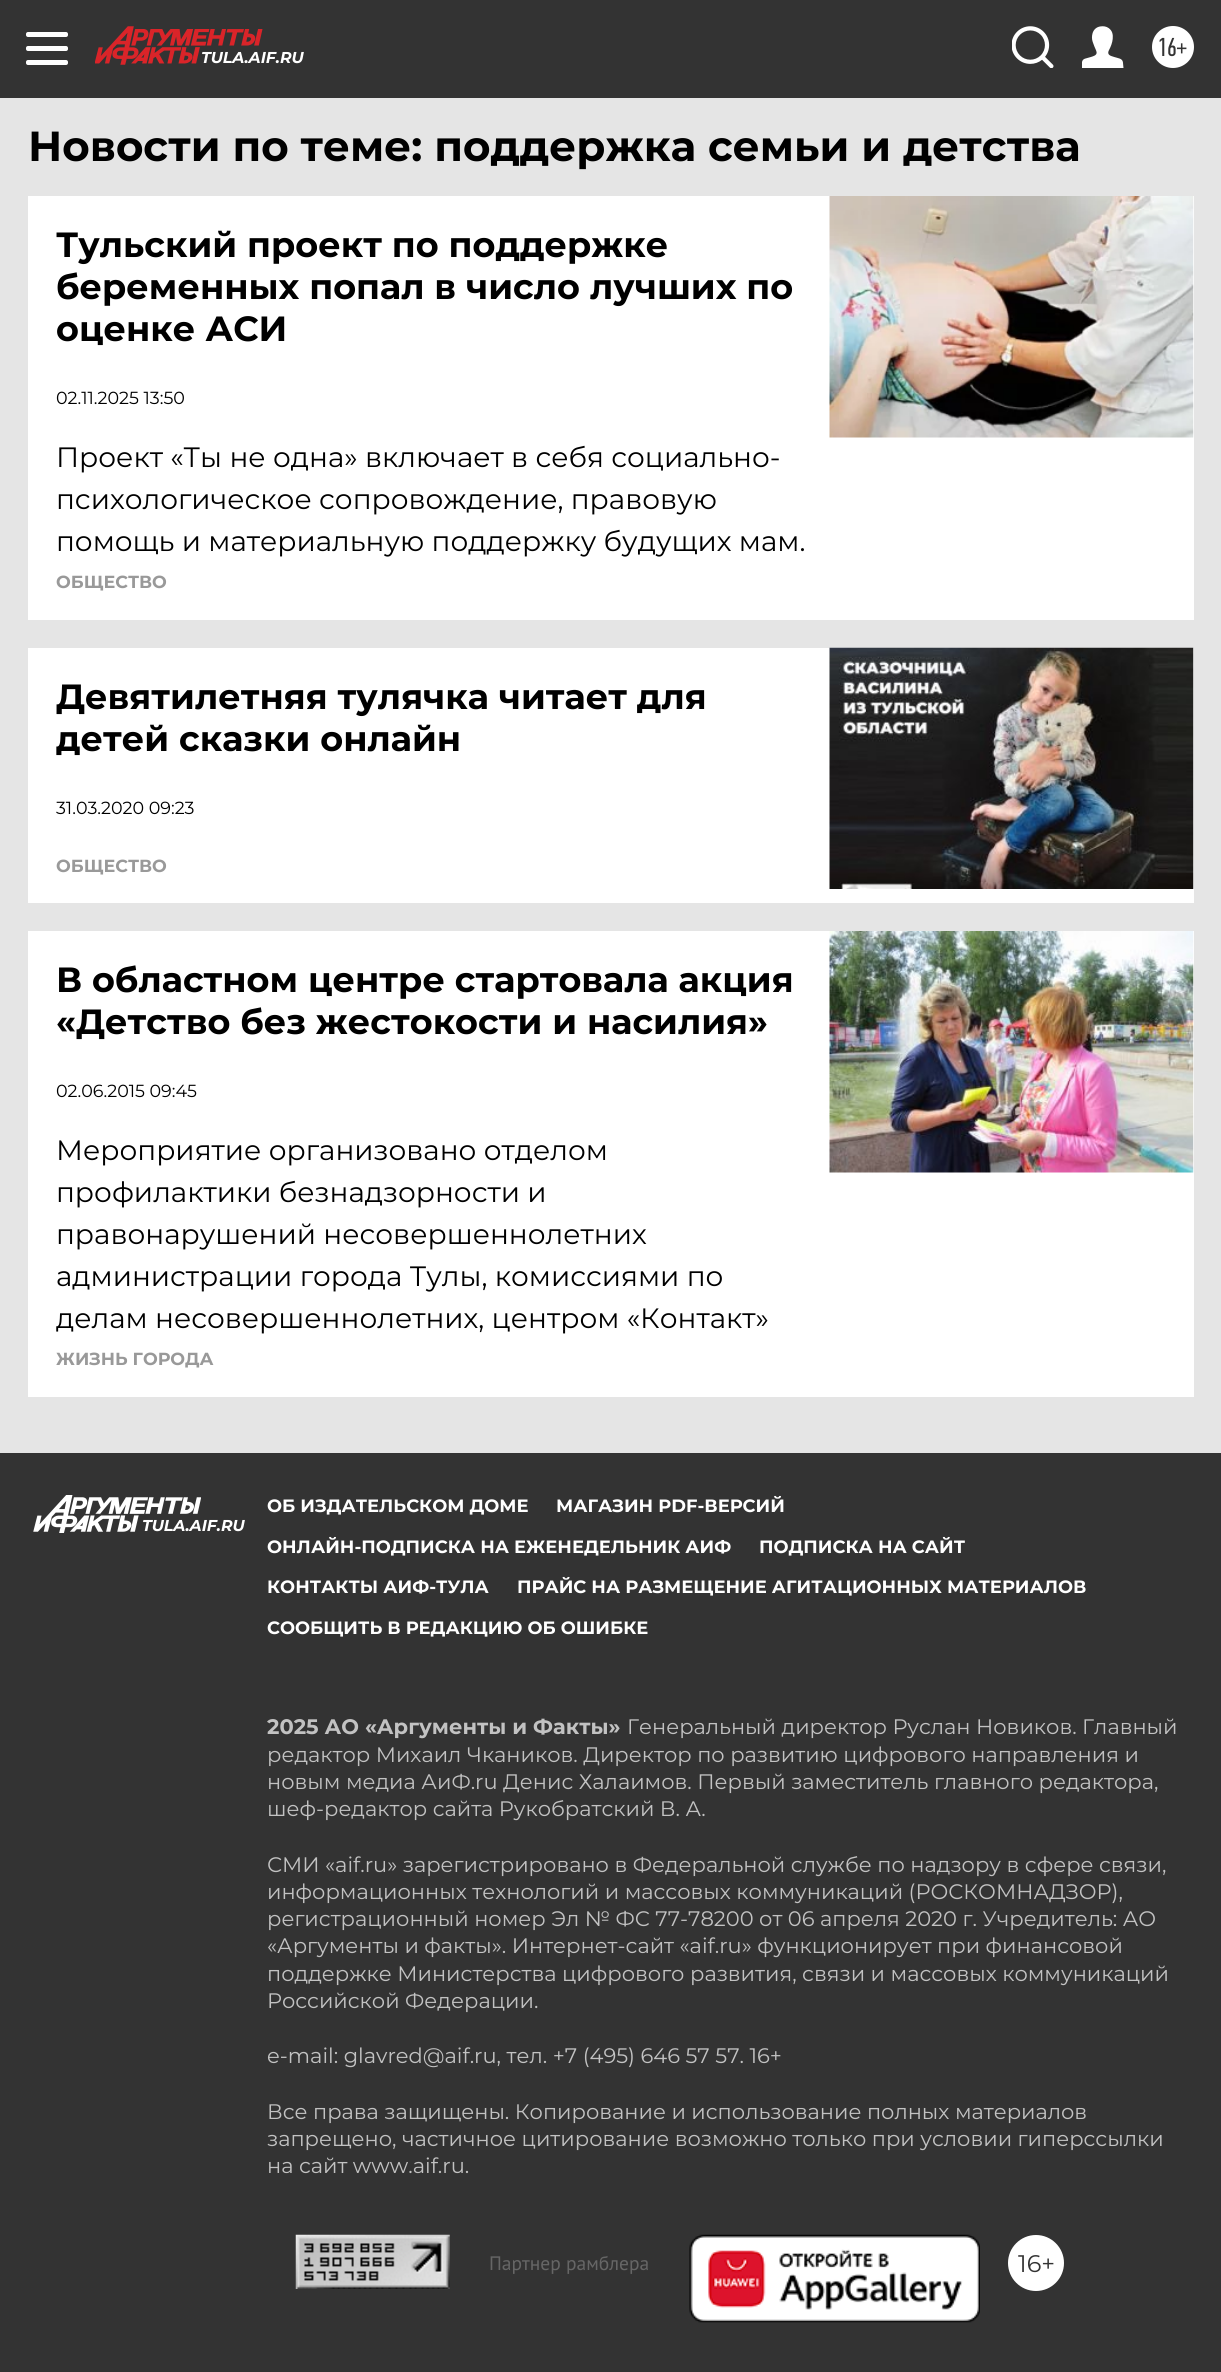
import math
import cairo

surface = cairo.ImageSurface(cairo.FORMAT_RGB24, 1221, 2372)
ctx = cairo.Context(surface)
options = cairo.FontOptions()
options.set_hint_metrics(cairo.HINT_METRICS_OFF)
options.set_hint_style(cairo.HINT_STYLE_NONE)
ctx.set_font_options(options)
ctx.set_miter_limit(4)


def round_rect(x, y, w, h, r):
    ctx.new_sub_path()
    for i, (u, v) in enumerate([(x + w - r, y + h - r), (x + r, y + h - r), (x + r, y + r), (x + w - r, y + r)]):
        ctx.arc(u, v, r, i * math.pi / 2, (i + 1) * math.pi / 2)
    ctx.close_path()


def picture(path, x, y, w, h):
    ctx.save()
    ctx.set_source_surface(cairo.ImageSurface.create_from_png(path), x, y)
    ctx.rectangle(x, y, w, h)
    ctx.fill()
    ctx.restore()


ctx.set_source_rgb(0.898, 0.898, 0.898)
ctx.paint()
ctx.set_source_rgb(0.2, 0.2, 0.2)
ctx.rectangle(0, 0, 1221, 98)
ctx.fill()
ctx.set_source_rgb(1, 1, 1)
round_rect(26, 32, 42, 5, 2)
ctx.fill()
round_rect(26, 46, 42, 5, 2)
ctx.fill()
round_rect(26, 60, 42, 5, 2)
ctx.fill()
picture("img1.png", 95, 26, 168, 39)
ctx.select_font_face("Montserrat", cairo.FONT_SLANT_ITALIC, cairo.FONT_WEIGHT_BOLD)
ctx.set_font_size(15.75)
ctx.move_to(201, 63)
ctx.show_text("TULA.AIF.RU")
picture("img2.png", 1012, 26, 42, 42)
picture("img3.png", 1082, 26, 42, 42)
ctx.arc(1173, 47, 21, 0, 2 * math.pi)
ctx.fill()
ctx.select_font_face("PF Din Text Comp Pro")
ctx.set_font_size(26)
ctx.set_source_rgb(0.2, 0.2, 0.2)
ctx.move_to(1157, 56)
ctx.show_text("16+")
ctx.select_font_face("Montserrat", cairo.FONT_SLANT_NORMAL, cairo.FONT_WEIGHT_BOLD)
ctx.set_font_size(42)
ctx.set_source_rgb(0, 0, 0)
ctx.move_to(28, 161)
ctx.show_text("Новости по теме: поддержка семьи и детства")
ctx.set_source_rgb(1, 1, 1)
ctx.rectangle(28, 196, 1166, 424)
ctx.fill()
ctx.set_font_size(35)
ctx.set_source_rgb(0, 0, 0)
ctx.move_to(56, 257)
ctx.show_text("Тульский проект по поддержке")
ctx.move_to(56, 299)
ctx.show_text("беременных попал в число лучших по")
ctx.move_to(56, 341)
ctx.show_text("оценке АСИ")
ctx.select_font_face("Montserrat")
ctx.set_font_size(17.5)
ctx.move_to(56, 404)
ctx.show_text("02.11.2025 13:50")
ctx.set_font_size(28)
ctx.move_to(56, 467)
ctx.show_text("Проект «Ты не одна» включает в себя социально-")
ctx.move_to(56, 509)
ctx.show_text("психологическое сопровождение, правовую")
ctx.move_to(56, 551)
ctx.show_text("помощь и материальную поддержку будущих мам.")
picture("img4.png", 829, 196, 365, 242)
ctx.select_font_face("Montserrat", cairo.FONT_SLANT_NORMAL, cairo.FONT_WEIGHT_BOLD)
ctx.set_font_size(17.5)
ctx.set_source_rgb(0.6, 0.6, 0.6)
ctx.move_to(56, 588)
ctx.show_text("ОБЩЕСТВО")
ctx.set_source_rgb(1, 1, 1)
ctx.rectangle(28, 648, 1166, 255)
ctx.fill()
ctx.set_font_size(35)
ctx.set_source_rgb(0, 0, 0)
ctx.move_to(56, 709)
ctx.show_text("Девятилетняя тулячка читает для")
ctx.move_to(56, 751)
ctx.show_text("детей сказки онлайн")
ctx.select_font_face("Montserrat")
ctx.set_font_size(17.5)
ctx.move_to(56, 814)
ctx.show_text("31.03.2020 09:23")
picture("img5.png", 829, 647, 365, 242)
ctx.select_font_face("Montserrat", cairo.FONT_SLANT_NORMAL, cairo.FONT_WEIGHT_BOLD)
ctx.set_source_rgb(0.6, 0.6, 0.6)
ctx.move_to(56, 872)
ctx.show_text("ОБЩЕСТВО")
ctx.set_source_rgb(1, 1, 1)
ctx.rectangle(28, 931, 1166, 466)
ctx.fill()
ctx.set_font_size(35)
ctx.set_source_rgb(0, 0, 0)
ctx.move_to(56, 992)
ctx.show_text("В областном центре стартовала акция")
ctx.move_to(56, 1034)
ctx.show_text("«Детство без жестокости и насилия»")
ctx.select_font_face("Montserrat")
ctx.set_font_size(17.5)
ctx.move_to(56, 1097)
ctx.show_text("02.06.2015 09:45")
ctx.set_font_size(28)
ctx.move_to(56, 1160)
ctx.show_text("Мероприятие организовано отделом")
ctx.move_to(56, 1202)
ctx.show_text("профилактики безнадзорности и")
ctx.move_to(56, 1244)
ctx.show_text("правонарушений несовершеннолетних")
ctx.move_to(56, 1286)
ctx.show_text("администрации города Тулы, комиссиями по")
ctx.move_to(56, 1328)
ctx.show_text("делам несовершеннолетних, центром «Контакт»")
picture("img6.png", 829, 931, 365, 242)
ctx.select_font_face("Montserrat", cairo.FONT_SLANT_NORMAL, cairo.FONT_WEIGHT_BOLD)
ctx.set_font_size(17.5)
ctx.set_source_rgb(0.6, 0.6, 0.6)
ctx.move_to(56, 1365)
ctx.show_text("ЖИЗНЬ ГОРОДА")
ctx.set_source_rgb(0.2, 0.2, 0.2)
ctx.rectangle(0, 1453, 1221, 919)
ctx.fill()
picture("img7.png", 33, 1495, 168, 38)
ctx.select_font_face("Montserrat", cairo.FONT_SLANT_ITALIC, cairo.FONT_WEIGHT_BOLD)
ctx.set_font_size(15.75)
ctx.set_source_rgb(1, 1, 1)
ctx.move_to(142, 1531)
ctx.show_text("TULA.AIF.RU")
ctx.select_font_face("Montserrat", cairo.FONT_SLANT_NORMAL, cairo.FONT_WEIGHT_BOLD)
ctx.set_font_size(17.85)
ctx.move_to(267, 1512)
ctx.show_text("ОБ ИЗДАТЕЛЬСКОМ ДОМЕ")
ctx.move_to(556, 1512)
ctx.show_text("МАГАЗИН PDF-ВЕРСИЙ")
ctx.move_to(267, 1553)
ctx.show_text("ОНЛАЙН-ПОДПИСКА НА ЕЖЕНЕДЕЛЬНИК АИФ")
ctx.move_to(759, 1553)
ctx.show_text("ПОДПИСКА НА САЙТ")
ctx.move_to(267, 1593)
ctx.show_text("КОНТАКТЫ АИФ-ТУЛА")
ctx.move_to(517, 1593)
ctx.show_text("ПРАЙС НА РАЗМЕЩЕНИЕ АГИТАЦИОННЫХ МАТЕРИАЛОВ")
ctx.move_to(267, 1634)
ctx.show_text("СООБЩИТЬ В РЕДАКЦИЮ ОБ ОШИБКЕ")
ctx.set_font_size(21)
ctx.set_source_rgb(0.761, 0.761, 0.761)
ctx.move_to(267, 1734)
ctx.show_text("2025 АО «Аргументы и Факты»")
ctx.select_font_face("Montserrat")
ctx.move_to(627, 1734)
ctx.show_text("Генеральный директор Руслан Новиков. Главный")
ctx.move_to(267, 1762)
ctx.show_text("редактор Михаил Чкаников. Директор по развитию цифрового направления и")
ctx.move_to(267, 1789)
ctx.show_text("новым медиа АиФ.ru Денис Халаимов. Первый заместитель главного редактора,")
ctx.move_to(267, 1816)
ctx.show_text("шеф-редактор сайта Рукобратский В. А.")
ctx.move_to(267, 1872)
ctx.show_text("СМИ «aif.ru» зарегистрировано в Федеральной службе по надзору в сфере связи,")
ctx.move_to(267, 1899)
ctx.show_text("информационных технологий и массовых коммуникаций (РОСКОМНАДЗОР),")
ctx.move_to(267, 1926)
ctx.show_text("регистрационный номер Эл № ФС 77-78200 от 06 апреля 2020 г. Учредитель: АО")
ctx.move_to(267, 1953)
ctx.show_text("«Аргументы и факты». Интернет-сайт «aif.ru» функционирует при финансовой")
ctx.move_to(267, 1981)
ctx.show_text("поддержке Министерства цифрового развития, связи и массовых коммуникаций")
ctx.move_to(267, 2008)
ctx.show_text("Российской Федерации.")
ctx.move_to(267, 2063)
ctx.show_text("e-mail: glavred@aif.ru, тел. +7 (495) 646 57 57. 16+")
ctx.move_to(267, 2119)
ctx.show_text("Все права защищены. Копирование и использование полных материалов")
ctx.move_to(267, 2146)
ctx.show_text("запрещено, частичное цитирование возможно только при условии гиперссылки")
ctx.move_to(267, 2173)
ctx.show_text("на сайт www.aif.ru.")
picture("img8.png", 295, 2234, 155, 55)
ctx.select_font_face("PT Sans")
ctx.set_font_size(19.5)
ctx.set_source_rgb(0.4, 0.4, 0.4)
ctx.move_to(489, 2270)
ctx.show_text("Партнер рамблера")
picture("img9.png", 689, 2234, 291, 89)
ctx.set_source_rgb(1, 1, 1)
ctx.arc(1036, 2263, 28, 0, 2 * math.pi)
ctx.fill()
ctx.select_font_face("Montserrat")
ctx.set_font_size(24)
ctx.set_source_rgb(0.2, 0.2, 0.2)
ctx.move_to(1018, 2272)
ctx.show_text("16+")
surface.write_to_png("page.png")
